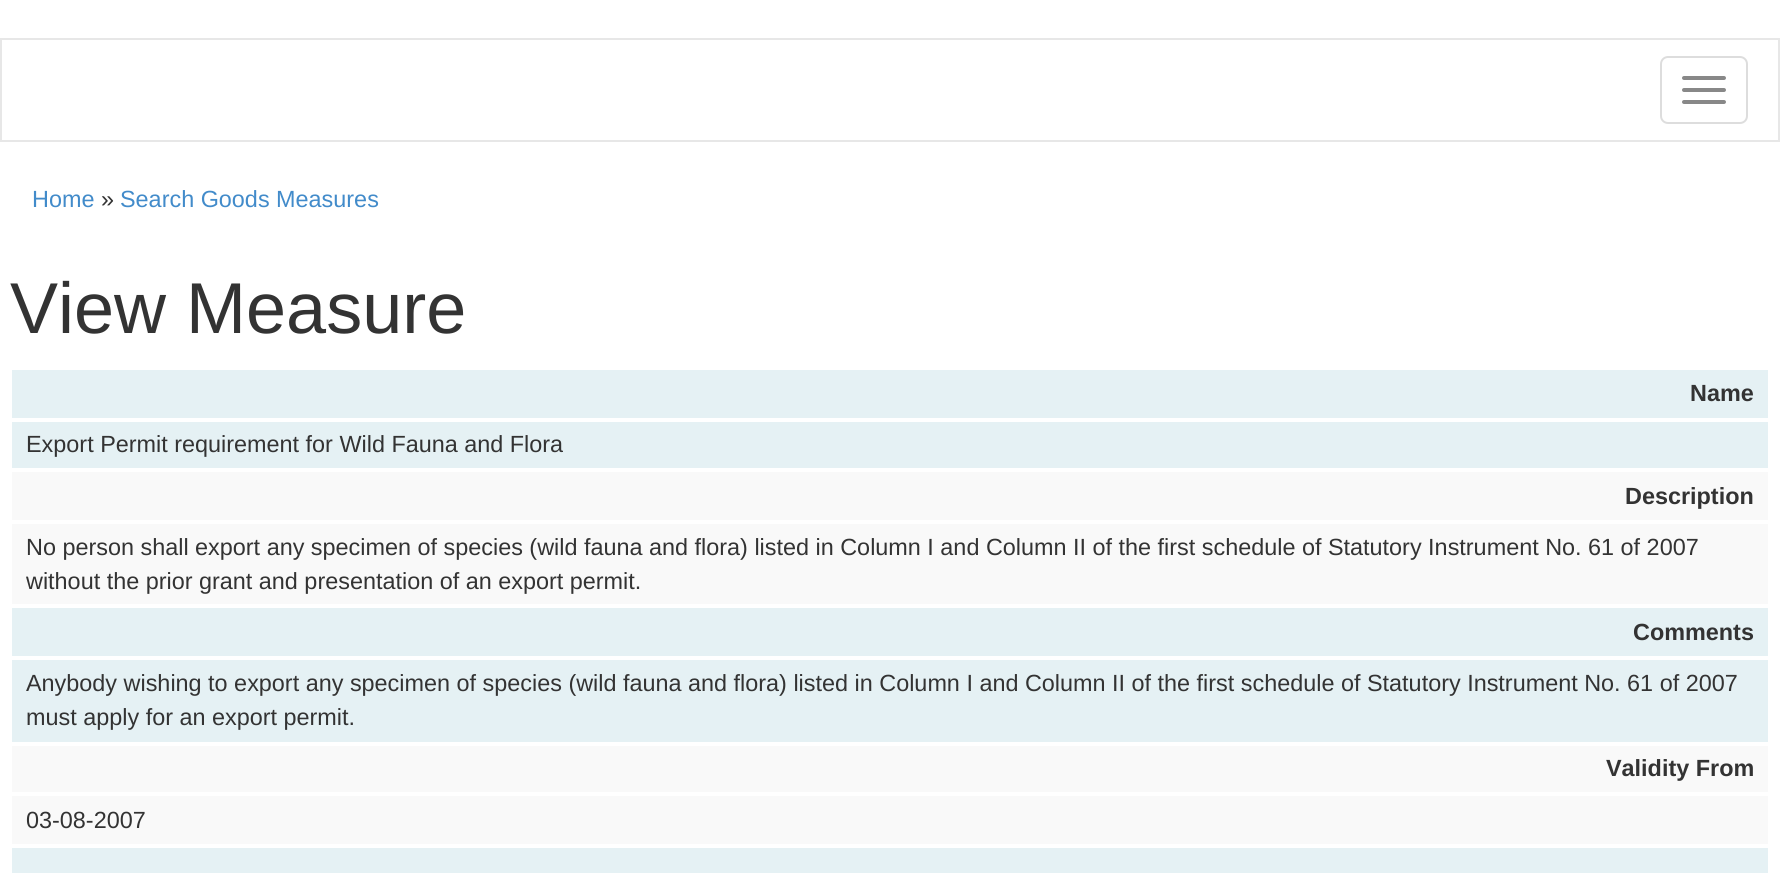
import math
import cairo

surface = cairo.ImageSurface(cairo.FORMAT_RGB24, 1780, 873)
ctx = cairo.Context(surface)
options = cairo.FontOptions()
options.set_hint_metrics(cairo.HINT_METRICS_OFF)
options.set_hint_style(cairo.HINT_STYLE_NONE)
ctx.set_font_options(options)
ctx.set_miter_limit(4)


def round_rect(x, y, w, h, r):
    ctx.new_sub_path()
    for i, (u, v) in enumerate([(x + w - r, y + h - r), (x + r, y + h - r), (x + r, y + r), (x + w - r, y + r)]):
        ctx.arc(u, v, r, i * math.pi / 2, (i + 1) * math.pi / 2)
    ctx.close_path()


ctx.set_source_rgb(1, 1, 1)
ctx.paint()
ctx.rectangle(1, 39, 1778, 102)
ctx.set_source_rgb(0.906, 0.906, 0.906)
ctx.stroke()
round_rect(1661, 57, 86, 66, 7)
ctx.set_source_rgb(0.867, 0.867, 0.867)
ctx.stroke()
ctx.set_source_rgb(0.533, 0.533, 0.533)
round_rect(1682, 76, 44, 4, 2)
ctx.fill()
round_rect(1682, 88, 44, 4, 2)
ctx.fill()
round_rect(1682, 100, 44, 4, 2)
ctx.fill()
ctx.select_font_face("Liberation Sans")
ctx.set_font_size(23.4)
ctx.set_source_rgb(0.259, 0.545, 0.792)
ctx.move_to(32, 207)
ctx.show_text("Home")
ctx.set_source_rgb(0.2, 0.2, 0.2)
ctx.move_to(101, 207)
ctx.show_text("»")
ctx.set_source_rgb(0.259, 0.545, 0.792)
ctx.move_to(120, 207)
ctx.show_text("Search Goods Measures")
ctx.set_font_size(72)
ctx.set_source_rgb(0.2, 0.2, 0.2)
ctx.move_to(10, 333)
ctx.show_text("View Measure")
ctx.set_source_rgb(0.898, 0.945, 0.957)
ctx.rectangle(12, 370, 1756, 98)
ctx.fill()
ctx.rectangle(11, 369, 1758, 50)
ctx.set_source_rgb(1, 1, 1)
ctx.stroke()
ctx.select_font_face("Liberation Sans", cairo.FONT_SLANT_NORMAL, cairo.FONT_WEIGHT_BOLD)
ctx.set_font_size(23.4)
ctx.set_source_rgb(0.2, 0.2, 0.2)
ctx.move_to(1690, 401)
ctx.show_text("Name")
ctx.rectangle(11, 421, 1758, 48)
ctx.set_source_rgb(1, 1, 1)
ctx.stroke()
ctx.select_font_face("Liberation Sans")
ctx.set_source_rgb(0.2, 0.2, 0.2)
ctx.move_to(26, 452)
ctx.show_text("Export Permit requirement for Wild Fauna and Flora")
ctx.set_source_rgb(0.973, 0.973, 0.973)
ctx.rectangle(12, 472, 1756, 132)
ctx.fill()
ctx.rectangle(11, 471, 1758, 50)
ctx.set_source_rgb(1, 1, 1)
ctx.stroke()
ctx.select_font_face("Liberation Sans", cairo.FONT_SLANT_NORMAL, cairo.FONT_WEIGHT_BOLD)
ctx.set_source_rgb(0.2, 0.2, 0.2)
ctx.move_to(1625, 504)
ctx.show_text("Description")
ctx.rectangle(11, 523, 1758, 82)
ctx.set_source_rgb(1, 1, 1)
ctx.stroke()
ctx.select_font_face("Liberation Sans")
ctx.set_source_rgb(0.2, 0.2, 0.2)
ctx.move_to(26, 555)
ctx.show_text("No person shall export any specimen of species (wild fauna and flora) listed in Column I and Column II of the first schedule of Statutory Instrument No. 61 of 2007")
ctx.move_to(26, 589)
ctx.show_text("without the prior grant and presentation of an export permit.")
ctx.set_source_rgb(0.898, 0.945, 0.957)
ctx.rectangle(12, 608, 1756, 134)
ctx.fill()
ctx.rectangle(11, 607, 1758, 50)
ctx.set_source_rgb(1, 1, 1)
ctx.stroke()
ctx.select_font_face("Liberation Sans", cairo.FONT_SLANT_NORMAL, cairo.FONT_WEIGHT_BOLD)
ctx.set_source_rgb(0.2, 0.2, 0.2)
ctx.move_to(1633, 640)
ctx.show_text("Comments")
ctx.rectangle(11, 659, 1758, 84)
ctx.set_source_rgb(1, 1, 1)
ctx.stroke()
ctx.select_font_face("Liberation Sans")
ctx.set_source_rgb(0.2, 0.2, 0.2)
ctx.move_to(26, 691)
ctx.show_text("Anybody wishing to export any specimen of species (wild fauna and flora) listed in Column I and Column II of the first schedule of Statutory Instrument No. 61 of 2007")
ctx.move_to(26, 725)
ctx.show_text("must apply for an export permit.")
ctx.set_source_rgb(0.973, 0.973, 0.973)
ctx.rectangle(12, 746, 1756, 98)
ctx.fill()
ctx.rectangle(11, 745, 1758, 48)
ctx.set_source_rgb(1, 1, 1)
ctx.stroke()
ctx.select_font_face("Liberation Sans", cairo.FONT_SLANT_NORMAL, cairo.FONT_WEIGHT_BOLD)
ctx.set_source_rgb(0.2, 0.2, 0.2)
ctx.move_to(1606, 776)
ctx.show_text("Validity From")
ctx.rectangle(11, 795, 1758, 50)
ctx.set_source_rgb(1, 1, 1)
ctx.stroke()
ctx.select_font_face("Liberation Sans")
ctx.set_source_rgb(0.2, 0.2, 0.2)
ctx.move_to(26, 828)
ctx.show_text("03-08-2007")
ctx.set_source_rgb(0.898, 0.945, 0.957)
ctx.rectangle(12, 848, 1756, 25)
ctx.fill()
surface.write_to_png("page.png")
